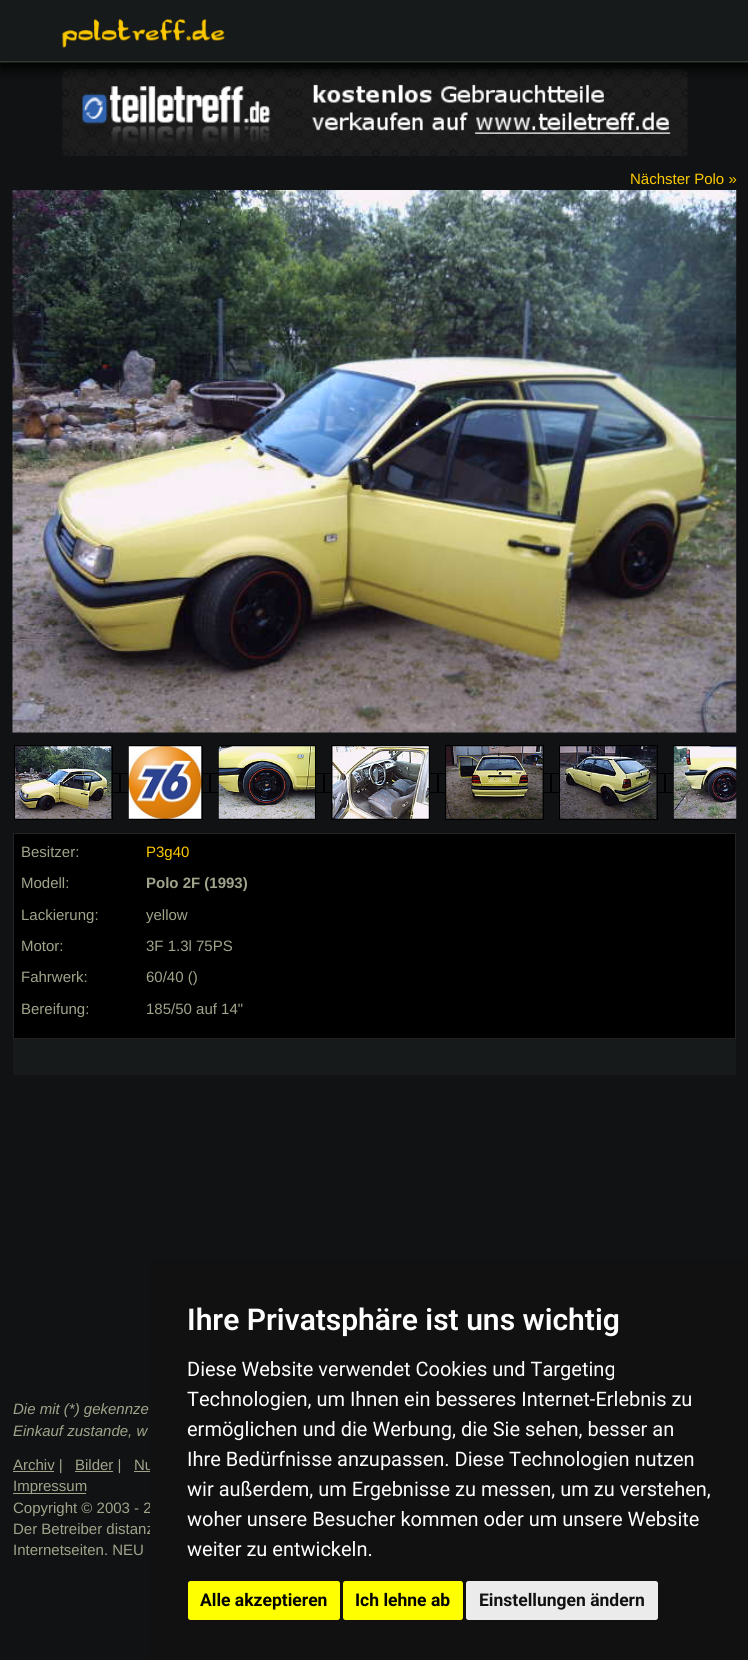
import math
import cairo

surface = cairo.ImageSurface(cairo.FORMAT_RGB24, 748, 1660)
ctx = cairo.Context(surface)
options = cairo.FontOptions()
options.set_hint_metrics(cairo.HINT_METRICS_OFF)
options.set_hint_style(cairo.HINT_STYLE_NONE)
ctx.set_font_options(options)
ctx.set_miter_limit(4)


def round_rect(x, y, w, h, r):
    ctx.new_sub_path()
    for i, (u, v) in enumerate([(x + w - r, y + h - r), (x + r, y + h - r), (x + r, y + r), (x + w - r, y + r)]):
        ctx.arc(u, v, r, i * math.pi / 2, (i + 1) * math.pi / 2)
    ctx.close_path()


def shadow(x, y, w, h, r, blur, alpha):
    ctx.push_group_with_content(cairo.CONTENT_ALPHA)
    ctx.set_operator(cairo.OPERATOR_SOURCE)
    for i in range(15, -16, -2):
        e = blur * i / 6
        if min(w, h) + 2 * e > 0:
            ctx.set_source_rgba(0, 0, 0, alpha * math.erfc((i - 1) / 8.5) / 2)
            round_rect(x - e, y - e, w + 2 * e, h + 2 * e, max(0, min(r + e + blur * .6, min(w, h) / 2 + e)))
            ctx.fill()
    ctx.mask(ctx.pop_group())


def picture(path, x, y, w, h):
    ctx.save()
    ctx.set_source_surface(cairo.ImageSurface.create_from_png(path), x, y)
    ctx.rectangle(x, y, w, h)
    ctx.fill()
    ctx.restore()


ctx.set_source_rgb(0.063, 0.071, 0.078)
ctx.paint()
picture("img2.png", 62, 69, 626, 87)
ctx.set_source_rgb(0, 0, 0)
shadow(0, 6, 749, 63, 0, 6, 1)
ctx.set_source_rgb(0.09, 0.102, 0.102)
ctx.rectangle(0, 0, 748, 63)
ctx.fill()
ctx.set_source_rgb(0.22, 0.247, 0.192)
ctx.rectangle(0, 61, 748, 1)
ctx.fill()
picture("img1.png", 62, 18, 163, 30)
ctx.select_font_face("Liberation Sans")
ctx.set_font_size(15)
ctx.set_source_rgb(0.992, 0.792, 0)
ctx.move_to(630, 184)
ctx.show_text("Nächster Polo »")
picture("img3.png", 12, 190, 725, 543)
ctx.save()
ctx.rectangle(13, 745, 723, 81)
ctx.clip()
ctx.rectangle(6.5, 773.5, 113, 19)
ctx.set_source_rgb(0, 0, 0)
ctx.set_line_width(1)
ctx.stroke()
ctx.restore()
ctx.rectangle(14.5, 745.5, 98, 74)
ctx.set_source_rgb(0, 0, 0)
ctx.set_line_width(1)
ctx.stroke()
ctx.rectangle(120.5, 773.5, 89, 19)
ctx.stroke()
ctx.rectangle(128.5, 745.5, 74, 74)
ctx.stroke()
ctx.rectangle(210.5, 773.5, 113, 19)
ctx.stroke()
ctx.rectangle(218.5, 745.5, 97, 74)
ctx.stroke()
ctx.rectangle(324.5, 773.5, 113, 19)
ctx.stroke()
ctx.rectangle(331.5, 745.5, 98, 74)
ctx.stroke()
ctx.rectangle(438.5, 773.5, 112, 19)
ctx.stroke()
ctx.rectangle(445.5, 745.5, 98, 74)
ctx.stroke()
ctx.rectangle(551.5, 773.5, 113, 19)
ctx.stroke()
ctx.rectangle(559.5, 745.5, 98, 74)
ctx.stroke()
ctx.save()
ctx.rectangle(13, 745, 723, 81)
ctx.clip()
ctx.rectangle(665.5, 773.5, 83, 19)
ctx.stroke()
ctx.rectangle(673.5, 745.5, 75, 74)
ctx.stroke()
ctx.restore()
picture("img4.png", 15, 746, 97, 73)
picture("img5.png", 128, 746, 74, 73)
picture("img6.png", 218, 746, 97, 73)
picture("img7.png", 332, 746, 97, 73)
picture("img8.png", 446, 746, 97, 73)
picture("img9.png", 560, 746, 97, 73)
picture("img10.png", 673, 746, 64, 73)
ctx.rectangle(13.5, 833.5, 722, 205)
ctx.fill_preserve()
ctx.set_source_rgb(0.137, 0.137, 0.137)
ctx.stroke()
ctx.set_source_rgb(0.631, 0.643, 0.545)
ctx.move_to(21, 857)
ctx.show_text("Besitzer:")
ctx.set_source_rgb(0.992, 0.792, 0)
ctx.move_to(146, 857)
ctx.show_text("P3g40")
ctx.set_source_rgb(0.631, 0.643, 0.545)
ctx.move_to(21, 888)
ctx.show_text("Modell:")
ctx.select_font_face("Liberation Sans", cairo.FONT_SLANT_NORMAL, cairo.FONT_WEIGHT_BOLD)
ctx.move_to(146, 888)
ctx.show_text("Polo 2F (1993)")
ctx.select_font_face("Liberation Sans")
ctx.move_to(21, 920)
ctx.show_text("Lackierung:")
ctx.move_to(146, 920)
ctx.show_text("yellow")
ctx.move_to(21, 951)
ctx.show_text("Motor:")
ctx.move_to(146, 951)
ctx.show_text("3F 1.3l 75PS")
ctx.move_to(21, 982)
ctx.show_text("Fahrwerk:")
ctx.move_to(146, 982)
ctx.show_text("60/40 ()")
ctx.move_to(21, 1014)
ctx.show_text("Bereifung:")
ctx.move_to(146, 1014)
ctx.show_text("185/50 auf 14\"")
ctx.set_source_rgb(0.09, 0.102, 0.102)
ctx.rectangle(13, 1039, 723, 36)
ctx.fill()
ctx.select_font_face("Liberation Sans", cairo.FONT_SLANT_ITALIC)
ctx.set_source_rgb(0.631, 0.643, 0.545)
ctx.move_to(13, 1414)
ctx.show_text("Die mit (*) gekennze")
ctx.move_to(13, 1436)
ctx.show_text("Einkauf zustande, w")
ctx.rectangle(13, 1471, 41, 1)
ctx.fill()
ctx.select_font_face("Liberation Sans")
ctx.move_to(13, 1470)
ctx.show_text("Archiv |")
ctx.rectangle(75, 1471, 38, 1)
ctx.fill()
ctx.move_to(75, 1470)
ctx.show_text("Bilder |")
ctx.move_to(134, 1470)
ctx.show_text("Nu")
ctx.rectangle(134, 1471, 16, 1)
ctx.fill()
ctx.rectangle(13, 1493, 73, 1)
ctx.fill()
ctx.move_to(13, 1491)
ctx.show_text("Impressum")
ctx.move_to(13, 1513)
ctx.show_text("Copyright © 2003 - 2")
ctx.move_to(13, 1534)
ctx.show_text("Der Betreiber distanz")
ctx.move_to(13, 1555)
ctx.show_text("Internetseiten. NEU")
ctx.set_source_rgb(0.067, 0.067, 0.067)
ctx.rectangle(150, 1260, 598, 400)
ctx.fill()
ctx.select_font_face("Roboto SemiBold")
ctx.set_font_size(30)
ctx.set_source_rgb(1, 1, 1)
ctx.move_to(187, 1330)
ctx.show_text("Ihre Privatsphäre ist uns wichtig")
ctx.select_font_face("Roboto")
ctx.set_font_size(20)
ctx.move_to(187, 1376)
ctx.show_text("Diese Website verwendet Cookies und Targeting")
ctx.move_to(187, 1406)
ctx.show_text("Technologien, um Ihnen ein besseres Internet-Erlebnis zu")
ctx.move_to(187, 1436)
ctx.show_text("ermöglichen und die Werbung, die Sie sehen, besser an")
ctx.move_to(187, 1466)
ctx.show_text("Ihre Bedürfnisse anzupassen. Diese Technologien nutzen")
ctx.move_to(187, 1496)
ctx.show_text("wir außerdem, um Ergebnisse zu messen, um zu verstehen,")
ctx.move_to(187, 1526)
ctx.show_text("woher unsere Besucher kommen oder um unsere Website")
ctx.move_to(187, 1556)
ctx.show_text("weiter zu entwickeln.")
ctx.set_source_rgb(1, 1, 0)
round_rect(188, 1581, 152, 39, 2.5)
ctx.fill()
ctx.select_font_face("Roboto", cairo.FONT_SLANT_NORMAL, cairo.FONT_WEIGHT_BOLD)
ctx.set_font_size(17.5)
ctx.set_source_rgb(0, 0, 0)
ctx.move_to(200, 1606)
ctx.show_text("Alle akzeptieren")
ctx.set_source_rgb(1, 1, 0)
round_rect(343, 1581, 120, 39, 2.5)
ctx.fill()
ctx.set_source_rgb(0, 0, 0)
ctx.move_to(355, 1606)
ctx.show_text("Ich lehne ab")
ctx.set_source_rgb(0.918, 0.918, 0.918)
round_rect(466, 1581, 192, 39, 2.5)
ctx.fill()
ctx.set_source_rgb(0.067, 0.067, 0.067)
ctx.move_to(479, 1606)
ctx.show_text("Einstellungen ändern")
surface.write_to_png("page.png")
